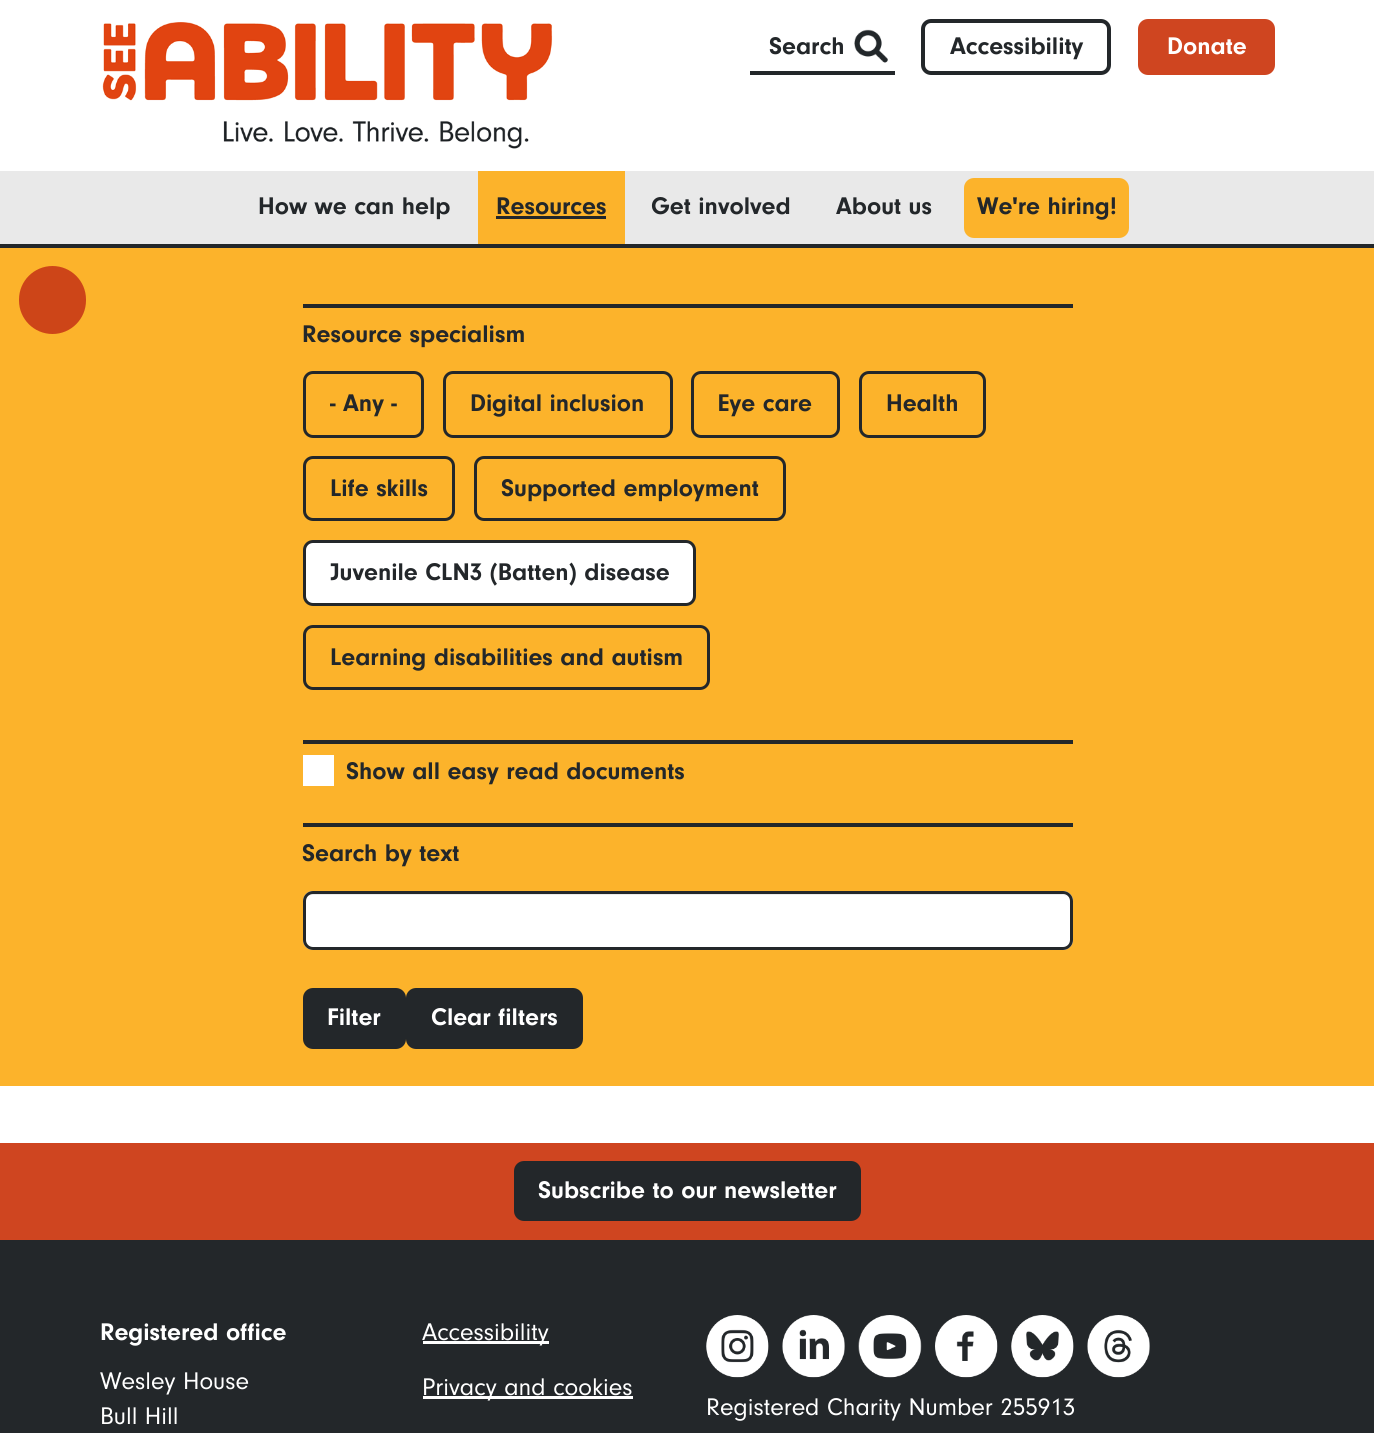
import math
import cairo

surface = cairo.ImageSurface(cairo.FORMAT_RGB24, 1374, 1433)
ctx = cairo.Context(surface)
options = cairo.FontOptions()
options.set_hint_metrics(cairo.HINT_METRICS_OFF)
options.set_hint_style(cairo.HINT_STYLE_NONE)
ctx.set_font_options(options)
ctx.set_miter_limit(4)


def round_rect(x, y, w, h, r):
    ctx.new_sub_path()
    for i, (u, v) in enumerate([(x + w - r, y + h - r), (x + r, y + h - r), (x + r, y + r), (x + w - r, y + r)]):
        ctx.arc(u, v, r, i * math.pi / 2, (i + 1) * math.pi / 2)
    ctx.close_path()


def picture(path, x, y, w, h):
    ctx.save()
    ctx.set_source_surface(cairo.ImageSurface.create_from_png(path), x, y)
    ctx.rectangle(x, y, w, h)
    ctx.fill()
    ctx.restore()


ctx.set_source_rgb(1, 1, 1)
ctx.paint()
picture("img1.png", 102, 22, 451, 127)
picture("img2.png", 854, 29, 34, 34)
ctx.set_source_rgb(0.137, 0.153, 0.165)
ctx.rectangle(750, 71, 145, 4)
ctx.fill()
ctx.select_font_face("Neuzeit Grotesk", cairo.FONT_SLANT_NORMAL, cairo.FONT_WEIGHT_BOLD)
ctx.set_font_size(25)
ctx.move_to(769, 54)
ctx.show_text("Search")
round_rect(923, 21, 186, 52, 8)
ctx.set_line_width(4)
ctx.stroke()
ctx.move_to(950, 54)
ctx.show_text("Accessibility")
ctx.set_source_rgb(0.812, 0.271, 0.125)
round_rect(1140, 21, 133, 52, 8)
ctx.fill_preserve()
ctx.stroke()
ctx.set_source_rgb(1, 1, 1)
ctx.move_to(1167, 54)
ctx.show_text("Donate")
ctx.set_source_rgb(0.914, 0.914, 0.914)
ctx.rectangle(0, 171, 1374, 73)
ctx.fill()
ctx.set_source_rgb(0.137, 0.153, 0.165)
ctx.rectangle(0, 244, 1374, 4)
ctx.fill()
ctx.move_to(258, 214)
ctx.show_text("How we can help")
ctx.set_source_rgb(0.988, 0.702, 0.169)
ctx.rectangle(478, 171, 147, 73)
ctx.fill()
ctx.set_source_rgb(0.137, 0.153, 0.165)
ctx.move_to(496, 214)
ctx.show_text("Resources")
ctx.rectangle(496, 216, 110, 3)
ctx.fill()
ctx.move_to(651, 214)
ctx.show_text("Get involved")
ctx.move_to(836, 214)
ctx.show_text("About us")
ctx.set_source_rgb(0.988, 0.702, 0.169)
round_rect(964, 178, 165, 60, 10)
ctx.fill()
ctx.set_source_rgb(0.137, 0.153, 0.165)
ctx.move_to(977, 214)
ctx.show_text("We're hiring!")
ctx.set_source_rgb(0.988, 0.702, 0.169)
ctx.rectangle(0, 248, 1374, 838)
ctx.fill()
ctx.set_source_rgb(0.804, 0.271, 0.094)
round_rect(19, 266, 67, 68, 33.5)
ctx.fill()
ctx.set_source_rgb(0.137, 0.153, 0.165)
ctx.rectangle(303, 304, 770, 4)
ctx.fill()
ctx.move_to(302, 342)
ctx.show_text("Resource specialism")
round_rect(304.5, 372.5, 118, 64, 8.5)
ctx.set_line_width(3)
ctx.stroke()
ctx.move_to(330, 411)
ctx.show_text("- Any -")
round_rect(444.5, 372.5, 227, 64, 8.5)
ctx.stroke()
ctx.move_to(470, 411)
ctx.show_text("Digital inclusion")
round_rect(692.5, 372.5, 146, 64, 8.5)
ctx.stroke()
ctx.move_to(718, 411)
ctx.show_text("Eye care")
round_rect(860.5, 372.5, 124, 64, 8.5)
ctx.stroke()
ctx.move_to(886, 411)
ctx.show_text("Health")
round_rect(304.5, 457.5, 149, 62, 8.5)
ctx.stroke()
ctx.move_to(330, 496)
ctx.show_text("Life skills")
round_rect(475.5, 457.5, 309, 62, 8.5)
ctx.stroke()
ctx.move_to(501, 496)
ctx.show_text("Supported employment")
ctx.set_source_rgb(1, 1, 1)
round_rect(304.5, 541.5, 390, 63, 8.5)
ctx.fill_preserve()
ctx.set_source_rgb(0.137, 0.153, 0.165)
ctx.stroke()
ctx.move_to(330, 580)
ctx.show_text("Juvenile CLN3 (Batten) disease")
round_rect(304.5, 626.5, 404, 62, 8.5)
ctx.stroke()
ctx.move_to(330, 665)
ctx.show_text("Learning disabilities and autism")
ctx.rectangle(303, 740, 770, 4)
ctx.fill()
ctx.set_source_rgb(1, 1, 1)
ctx.rectangle(303, 755, 31, 31)
ctx.fill()
ctx.set_source_rgb(0.137, 0.153, 0.165)
ctx.move_to(346, 779)
ctx.show_text("Show all easy read documents")
ctx.rectangle(303, 823, 770, 4)
ctx.fill()
ctx.move_to(302, 861)
ctx.show_text("Search by text")
ctx.set_source_rgb(1, 1, 1)
round_rect(303, 891, 770, 59, 10)
ctx.fill()
ctx.set_source_rgb(0.925, 0.925, 0.925)
ctx.new_path()
ctx.move_to(312, 895)
ctx.line_to(1062, 895)
ctx.curve_to(1067, 895, 1070, 898, 1070, 902)
ctx.curve_to(1070, 898, 1066, 894, 1062, 894)
ctx.line_to(313, 894)
ctx.curve_to(309, 894, 305, 898, 305, 902)
ctx.curve_to(305, 898, 308, 895, 312, 895)
ctx.close_path()
ctx.fill()
round_rect(304.5, 892.5, 767, 56, 8.5)
ctx.set_source_rgb(0.137, 0.153, 0.165)
ctx.stroke()
round_rect(303, 988, 103, 61, 10)
ctx.fill()
ctx.set_source_rgb(1, 1, 1)
ctx.move_to(327, 1025)
ctx.show_text("Filter")
ctx.set_source_rgb(0.137, 0.153, 0.165)
round_rect(406, 988, 177, 61, 10)
ctx.fill()
ctx.set_source_rgb(1, 1, 1)
ctx.move_to(431, 1025)
ctx.show_text("Clear filters")
ctx.set_source_rgb(0.137, 0.153, 0.165)
ctx.rectangle(0, 1240, 1374, 193)
ctx.fill()
ctx.set_source_rgb(0.812, 0.271, 0.125)
ctx.rectangle(0, 1143, 1374, 97)
ctx.fill()
ctx.set_source_rgb(0.137, 0.153, 0.165)
round_rect(514, 1161, 347, 60, 10)
ctx.fill()
ctx.set_source_rgb(1, 1, 1)
ctx.move_to(538, 1198)
ctx.show_text("Subscribe to our newsletter")
ctx.move_to(100, 1340)
ctx.show_text("Registered office")
ctx.select_font_face("Neuzeit Grotesk")
ctx.move_to(100, 1389)
ctx.show_text("Wesley House")
ctx.move_to(100, 1424)
ctx.show_text("Bull Hill")
ctx.rectangle(423, 1341, 126, 3)
ctx.fill()
ctx.move_to(422, 1340)
ctx.show_text("Accessibility")
ctx.rectangle(423, 1396, 210, 3)
ctx.fill()
ctx.move_to(422, 1395)
ctx.show_text("Privacy and cookies")
picture("img3.png", 706, 1315, 63, 63)
picture("img4.png", 782, 1315, 63, 63)
picture("img5.png", 858, 1315, 64, 63)
picture("img6.png", 935, 1315, 63, 63)
picture("img7.png", 1011, 1315, 63, 63)
picture("img8.png", 1087, 1315, 63, 63)
ctx.move_to(706, 1415)
ctx.show_text("Registered Charity Number 255913")
surface.write_to_png("page.png")
